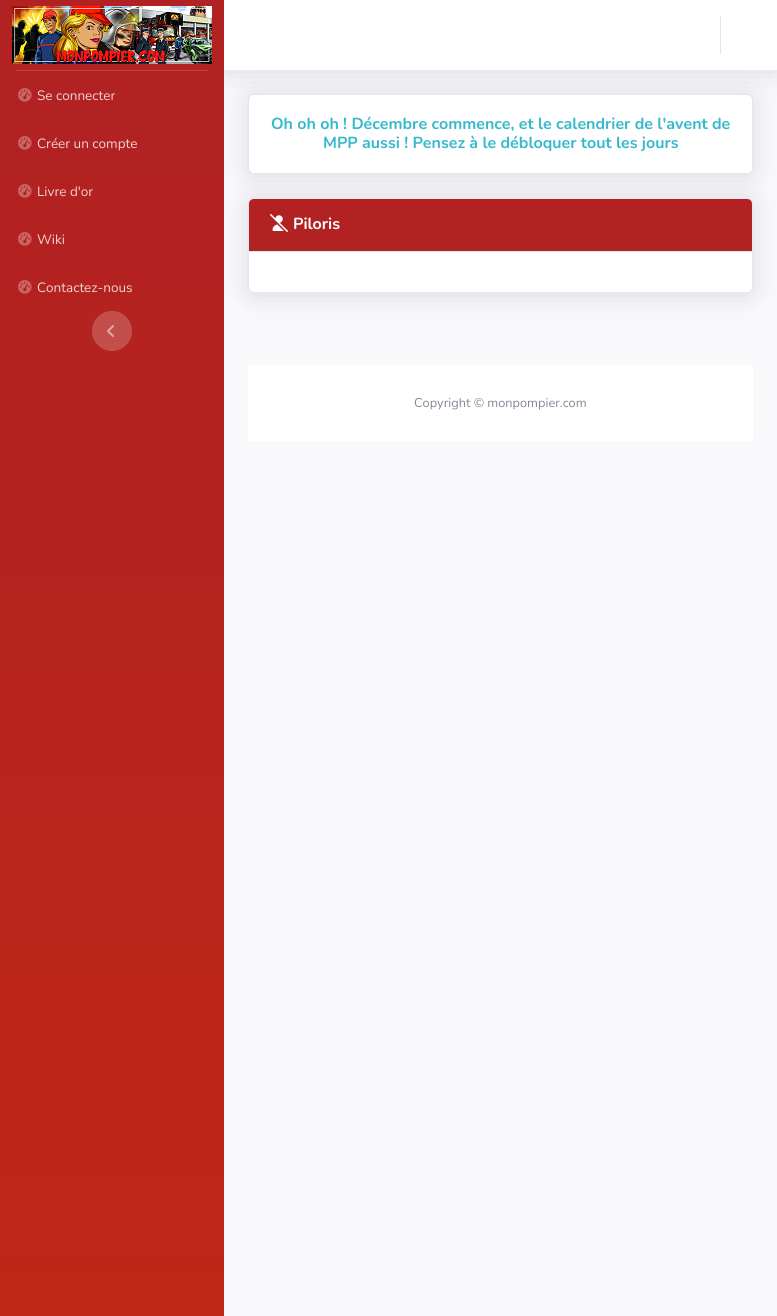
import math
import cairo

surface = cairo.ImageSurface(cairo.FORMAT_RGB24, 777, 1316)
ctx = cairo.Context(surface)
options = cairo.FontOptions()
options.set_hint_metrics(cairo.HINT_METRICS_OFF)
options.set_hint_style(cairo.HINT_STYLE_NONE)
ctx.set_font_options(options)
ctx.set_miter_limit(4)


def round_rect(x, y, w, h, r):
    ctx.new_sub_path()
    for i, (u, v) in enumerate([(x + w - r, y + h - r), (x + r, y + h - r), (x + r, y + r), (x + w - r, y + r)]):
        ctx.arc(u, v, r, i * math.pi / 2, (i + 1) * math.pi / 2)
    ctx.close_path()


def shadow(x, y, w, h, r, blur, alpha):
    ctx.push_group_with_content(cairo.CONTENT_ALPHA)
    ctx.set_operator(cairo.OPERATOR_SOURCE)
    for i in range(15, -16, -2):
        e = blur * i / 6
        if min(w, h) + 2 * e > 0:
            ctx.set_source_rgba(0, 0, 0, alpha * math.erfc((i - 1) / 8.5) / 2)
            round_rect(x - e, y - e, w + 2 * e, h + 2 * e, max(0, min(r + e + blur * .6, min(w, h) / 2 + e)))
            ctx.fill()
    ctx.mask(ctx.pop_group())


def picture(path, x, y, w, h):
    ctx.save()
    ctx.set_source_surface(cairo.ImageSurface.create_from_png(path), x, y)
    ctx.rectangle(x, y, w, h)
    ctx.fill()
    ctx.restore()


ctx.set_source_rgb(1, 1, 1)
ctx.paint()
gradient = cairo.LinearGradient(112, 0, 112, 1316)
gradient.add_color_stop_rgba(0.1, 0.698, 0.133, 0.133, 1)
gradient.add_color_stop_rgba(1, 0.745, 0.149, 0.09, 1)
ctx.set_source(gradient)
ctx.rectangle(0, 0, 224, 1316)
ctx.fill()
ctx.set_source_rgb(0.745, 0.263, 0.263)
ctx.rectangle(16, 70, 192, 1)
ctx.fill()
ctx.set_source_rgb(0.973, 0.976, 0.988)
ctx.rectangle(224, 70, 553, 1246)
ctx.fill()
ctx.save()
ctx.rectangle(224, 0, 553, 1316)
ctx.clip()
ctx.set_source_rgb(0.227, 0.231, 0.271)
shadow(224, 2, 553, 70, 0, 14, 0.15)
ctx.restore()
ctx.set_source_rgb(1, 1, 1)
ctx.rectangle(224, 0, 553, 70)
ctx.fill()
ctx.set_source_rgb(0.89, 0.902, 0.941)
ctx.rectangle(720, 16, 1, 38)
ctx.fill()
ctx.set_source_rgb(0.227, 0.231, 0.271)
shadow(248, 96, 505, 80, 6, 14, 0.15)
picture("img1.png", 12, 6, 200, 58)
picture("img2.png", 18, 88, 14, 14)
ctx.select_font_face("Nunito")
ctx.set_font_size(13.5)
ctx.set_source_rgb(0.941, 0.827, 0.827)
ctx.move_to(37, 100)
ctx.show_text("Se connecter")
picture("img2.png", 18, 136, 14, 14)
ctx.move_to(37, 148)
ctx.show_text("Créer un compte")
picture("img3.png", 18, 184, 14, 14)
ctx.move_to(37, 196)
ctx.show_text("Livre d'or")
picture("img4.png", 18, 232, 14, 14)
ctx.move_to(37, 244)
ctx.show_text("Wiki")
picture("img5.png", 18, 280, 14, 14)
ctx.move_to(37, 292)
ctx.show_text("Contactez-nous")
ctx.set_source_rgb(0.765, 0.31, 0.302)
ctx.new_path()
ctx.arc(112, 331, 20, 0, 2 * math.pi)
ctx.fill()
picture("img6.png", 107, 325, 7, 12)
ctx.set_source_rgb(1, 1, 1)
round_rect(248.5, 94.5, 504, 79, 5.5)
ctx.fill_preserve()
ctx.set_source_rgb(0.89, 0.902, 0.941)
ctx.set_line_width(1)
ctx.stroke()
ctx.select_font_face("Nunito", cairo.FONT_SLANT_NORMAL, cairo.FONT_WEIGHT_BOLD)
ctx.set_font_size(16)
ctx.set_source_rgb(0.212, 0.725, 0.8)
ctx.move_to(271, 129)
ctx.show_text("Oh oh oh ! Décembre commence, et le calendrier de l'avent de")
ctx.move_to(323, 148)
ctx.show_text("MPP aussi ! Pensez à le débloquer tout les jours")
ctx.set_source_rgb(0.227, 0.231, 0.271)
shadow(248, 200, 505, 95, 6, 14, 0.15)
ctx.set_source_rgb(1, 1, 1)
round_rect(248.5, 198.5, 504, 94, 5.5)
ctx.fill_preserve()
ctx.set_source_rgb(0.89, 0.902, 0.941)
ctx.stroke()
ctx.set_source_rgb(0.698, 0.133, 0.133)
ctx.new_path()
ctx.move_to(254, 199)
ctx.line_to(747, 199)
ctx.curve_to(750, 199, 752, 201, 752, 204)
ctx.line_to(752, 252)
ctx.line_to(249, 252)
ctx.line_to(249, 204)
ctx.curve_to(249, 201, 251, 199, 254, 199)
ctx.close_path()
ctx.fill()
ctx.set_source_rgb(0.89, 0.902, 0.941)
ctx.rectangle(249, 251, 503, 1)
ctx.fill()
picture("img7.png", 270, 214, 18, 18)
ctx.set_source_rgb(1, 1, 1)
ctx.move_to(293, 229)
ctx.show_text("Piloris")
ctx.rectangle(248, 365, 505, 76)
ctx.fill()
ctx.select_font_face("Nunito")
ctx.set_font_size(12.75)
ctx.set_source_rgb(0.522, 0.529, 0.588)
ctx.move_to(414, 407)
ctx.show_text("Copyright © monpompier.com")
surface.write_to_png("page.png")
